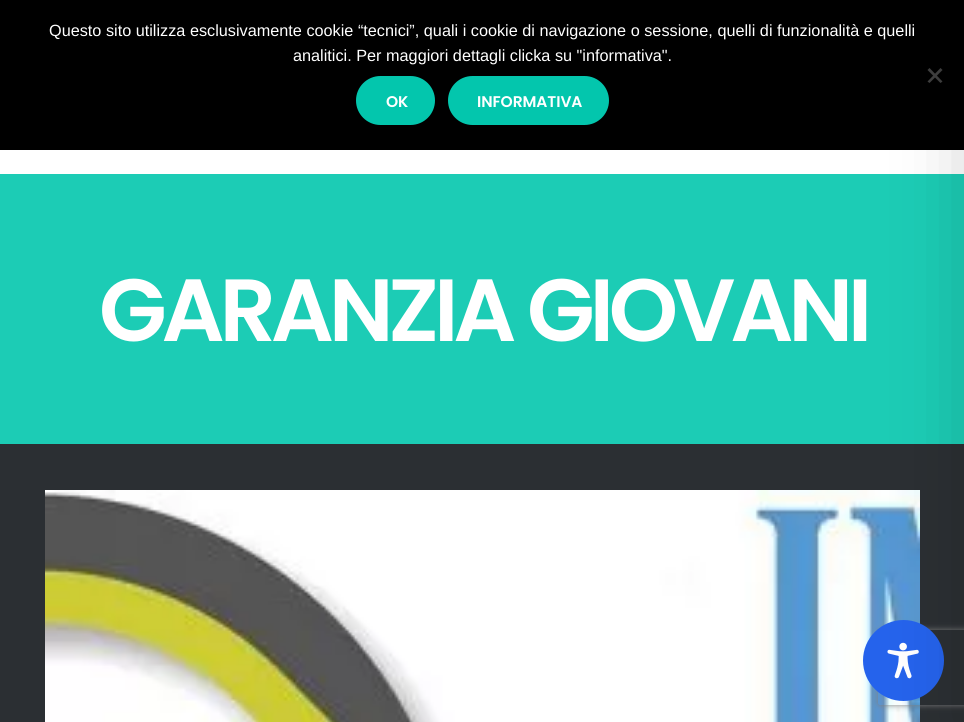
import math
import cairo

surface = cairo.ImageSurface(cairo.FORMAT_RGB24, 964, 722)
ctx = cairo.Context(surface)
options = cairo.FontOptions()
options.set_hint_metrics(cairo.HINT_METRICS_OFF)
options.set_hint_style(cairo.HINT_STYLE_NONE)
ctx.set_font_options(options)
ctx.set_miter_limit(4)


def spaced_text(x, y, s, letter, word):
    ctx.move_to(x, y)
    for ch in s:
        ctx.show_text(ch)
        ctx.rel_move_to(letter + word * (ch == ' '), 0)


def round_rect(x, y, w, h, r):
    ctx.new_sub_path()
    for i, (u, v) in enumerate([(x + w - r, y + h - r), (x + r, y + h - r), (x + r, y + r), (x + w - r, y + r)]):
        ctx.arc(u, v, r, i * math.pi / 2, (i + 1) * math.pi / 2)
    ctx.close_path()


def shadow(x, y, w, h, r, blur, alpha):
    ctx.push_group_with_content(cairo.CONTENT_ALPHA)
    ctx.set_operator(cairo.OPERATOR_SOURCE)
    for i in range(15, -16, -2):
        e = blur * i / 6
        if min(w, h) + 2 * e > 0:
            ctx.set_source_rgba(0, 0, 0, alpha * math.erfc((i - 1) / 8.5) / 2)
            round_rect(x - e, y - e, w + 2 * e, h + 2 * e, max(0, min(r + e + blur * .6, min(w, h) / 2 + e)))
            ctx.fill()
    ctx.mask(ctx.pop_group())


def picture(path, x, y, w, h):
    ctx.save()
    ctx.set_source_surface(cairo.ImageSurface.create_from_png(path), x, y)
    ctx.rectangle(x, y, w, h)
    ctx.fill()
    ctx.restore()


ctx.set_source_rgb(0.169, 0.184, 0.2)
ctx.paint()
ctx.set_source_rgb(0, 0, 0)
ctx.rectangle(0, 0, 964, 150)
ctx.fill()
ctx.set_source_rgb(0.251, 0.251, 0.251)
ctx.new_path()
ctx.move_to(940.5, 68)
ctx.line_to(942.5, 70)
ctx.line_to(929.5, 83)
ctx.line_to(927.5, 81.5)
ctx.close_path()
ctx.fill()
ctx.new_path()
ctx.move_to(927.5, 70)
ctx.line_to(929.5, 68)
ctx.line_to(942.5, 81.5)
ctx.line_to(940.5, 83)
ctx.close_path()
ctx.fill()
ctx.set_source_rgb(1, 1, 1)
ctx.rectangle(0, 150, 964, 24)
ctx.fill()
ctx.set_source_rgb(0.11, 0.8, 0.71)
ctx.rectangle(0, 174, 964, 270)
ctx.fill()
picture("img1.png", 45, 490, 875, 232)
ctx.save()
ctx.set_fill_rule(cairo.FILL_RULE_EVEN_ODD)
ctx.new_path()
ctx.move_to(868, 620)
ctx.line_to(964, 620)
ctx.line_to(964, 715)
ctx.line_to(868, 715)
ctx.close_path()
ctx.move_to(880.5, 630)
ctx.line_to(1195.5, 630)
ctx.curve_to(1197, 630, 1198, 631, 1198, 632.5)
ctx.line_to(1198, 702.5)
ctx.curve_to(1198, 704, 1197, 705, 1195.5, 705)
ctx.line_to(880.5, 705)
ctx.curve_to(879, 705, 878, 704, 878, 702.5)
ctx.line_to(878, 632.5)
ctx.curve_to(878, 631, 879, 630, 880.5, 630)
ctx.close_path()
ctx.clip()
ctx.set_source_rgb(0.502, 0.502, 0.502)
shadow(878, 630, 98, 75, 2.5, 3, 1)
ctx.restore()
ctx.set_source_rgb(0.145, 0.388, 0.922)
ctx.arc(903.5, 660.5, 40.5, 0, 2 * math.pi)
ctx.fill()
picture("img2.png", 887, 642, 32, 37)
ctx.set_source_rgb(0, 0, 0)
shadow(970, 13, 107, 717, 0, 37.5, 0.2)
ctx.select_font_face("Liberation Sans")
ctx.set_font_size(16.25)
ctx.set_source_rgb(1, 1, 1)
ctx.move_to(49, 36)
ctx.show_text("Questo sito utilizza esclusivamente cookie “tecnici”, quali i cookie di navigazione o sessione, quelli di funzionalità e quelli")
ctx.move_to(293, 61)
ctx.show_text("analitici. Per maggiori dettagli clicka su \"informativa\".")
ctx.set_source_rgb(0.012, 0.776, 0.678)
round_rect(356, 76, 79, 49, 24.5)
ctx.fill()
ctx.select_font_face("Poppins SemiBold")
ctx.set_font_size(15.5)
ctx.set_source_rgb(1, 1, 1)
spaced_text(386, 107, "OK", -0.1, 0)
ctx.set_source_rgb(0.012, 0.776, 0.678)
round_rect(448, 76, 161, 49, 24.5)
ctx.fill()
ctx.set_source_rgb(1, 1, 1)
spaced_text(477, 107, "INFORMATIVA", -0.1, 0)
ctx.set_font_size(88.25)
spaced_text(99, 341, "GARANZIA GIOVANI", -5.25, 0)
surface.write_to_png("page.png")
